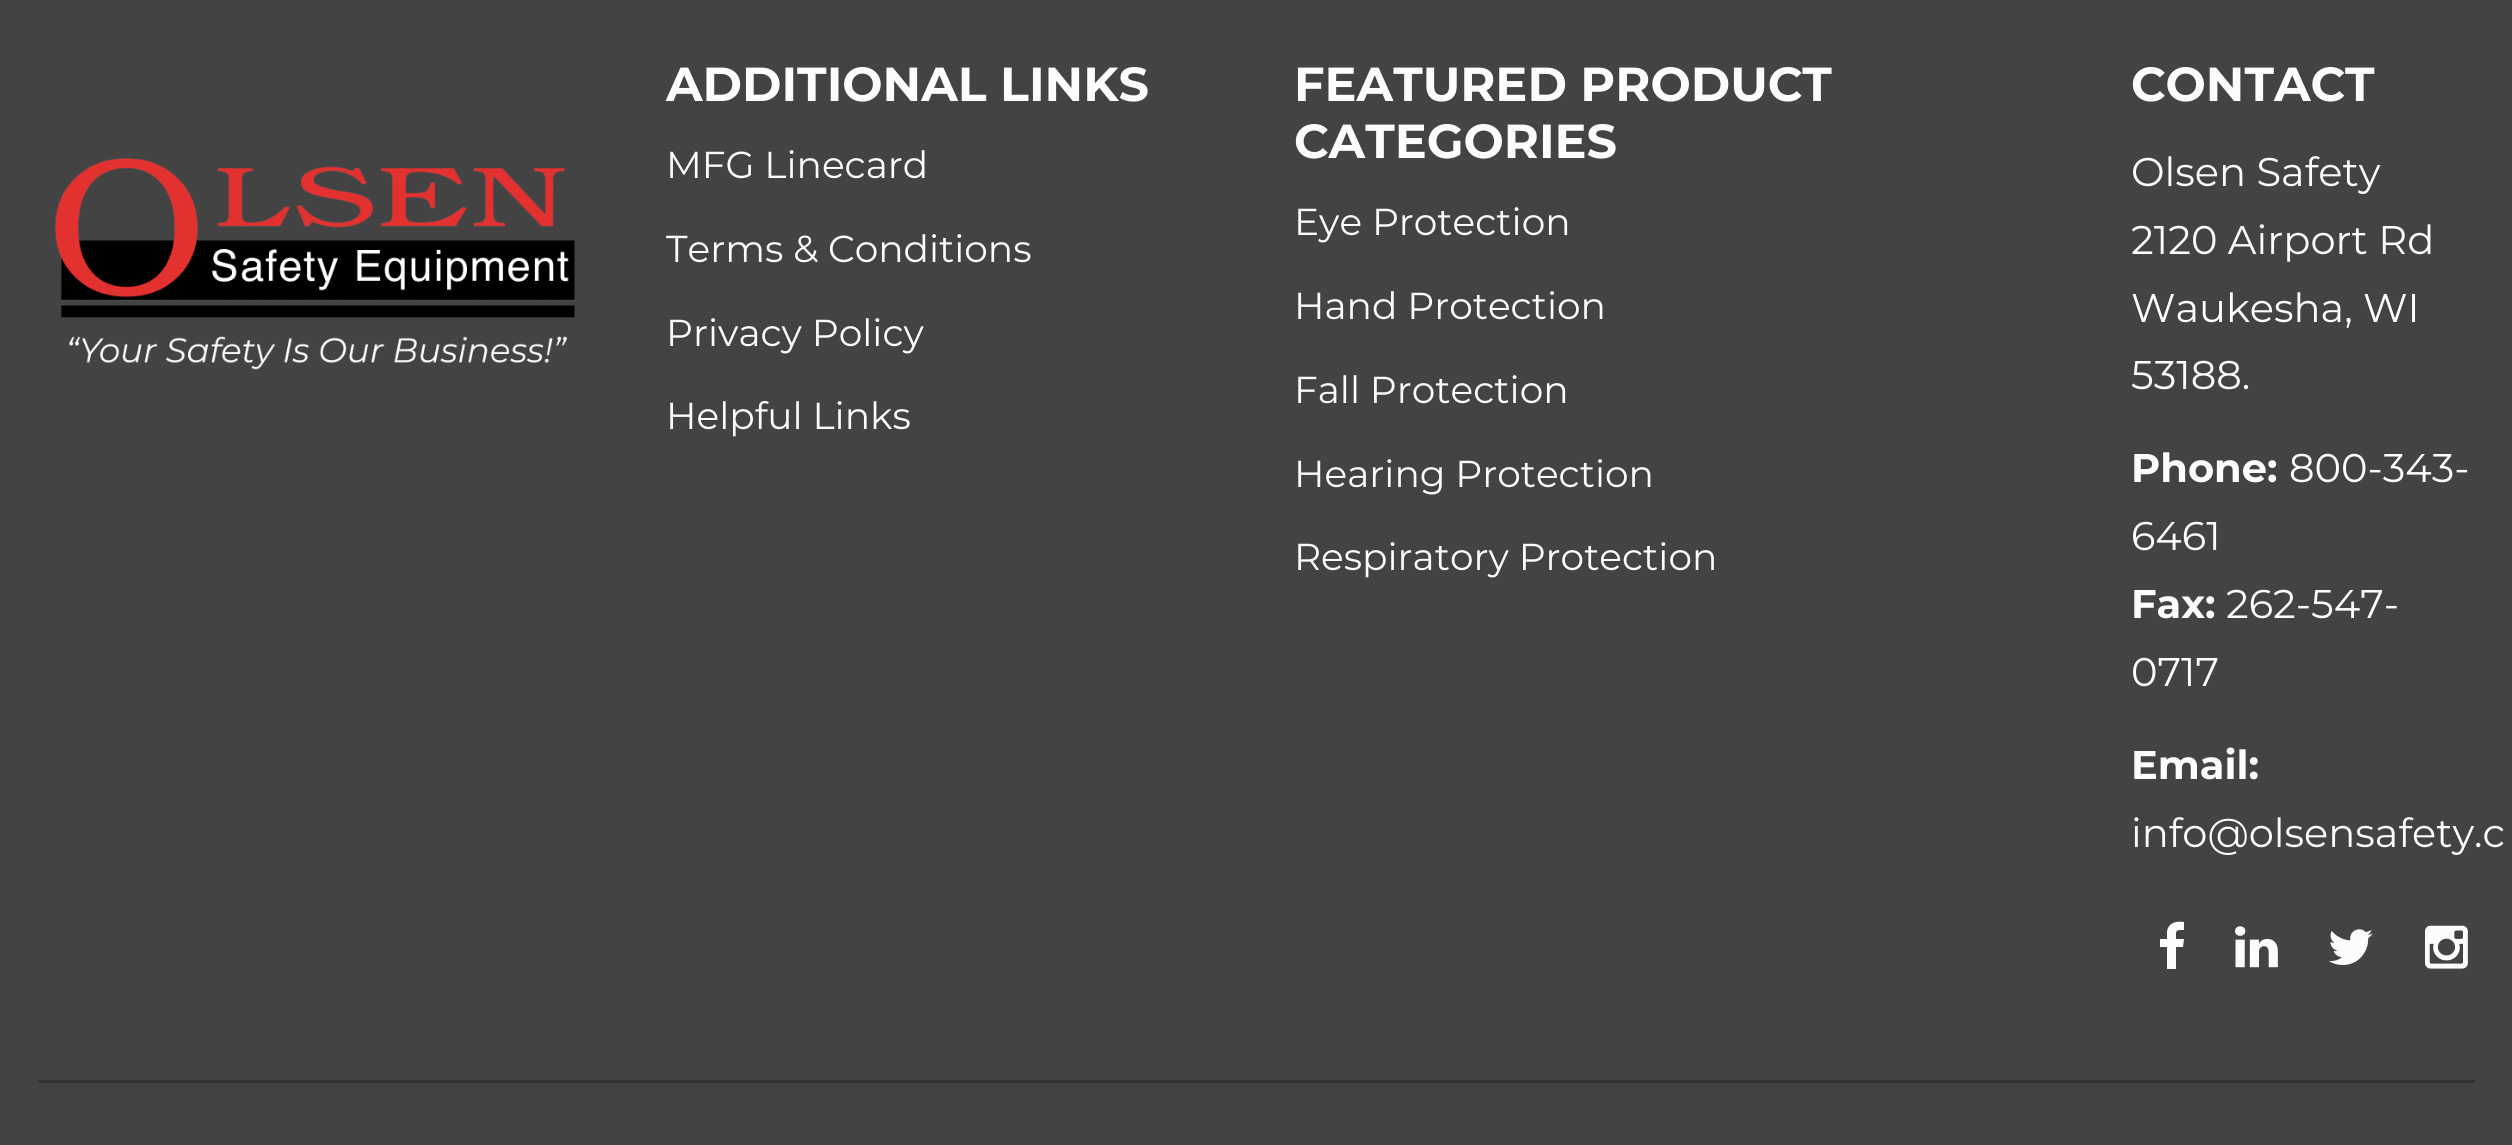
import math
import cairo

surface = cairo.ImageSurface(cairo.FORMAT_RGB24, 2512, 1145)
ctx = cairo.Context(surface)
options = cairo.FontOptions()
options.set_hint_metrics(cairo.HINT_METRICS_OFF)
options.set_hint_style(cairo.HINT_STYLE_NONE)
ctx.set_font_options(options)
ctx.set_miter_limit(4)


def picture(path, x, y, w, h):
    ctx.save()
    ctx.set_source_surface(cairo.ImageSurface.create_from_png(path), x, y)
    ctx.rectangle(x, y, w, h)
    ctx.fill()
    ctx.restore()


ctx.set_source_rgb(0.267, 0.263, 0.263)
ctx.paint()
picture("img1.png", 54, 158, 521, 212)
ctx.select_font_face("Montserrat", cairo.FONT_SLANT_NORMAL, cairo.FONT_WEIGHT_BOLD)
ctx.set_font_size(47.75)
ctx.set_source_rgb(0.992, 0.984, 0.984)
ctx.move_to(666, 101)
ctx.show_text("ADDITIONAL LINKS")
ctx.select_font_face("Montserrat")
ctx.set_font_size(37.5)
ctx.move_to(666, 178)
ctx.show_text("MFG Linecard")
ctx.move_to(666, 262)
ctx.show_text("Terms & Conditions")
ctx.move_to(666, 346)
ctx.show_text("Privacy Policy")
ctx.move_to(666, 429)
ctx.show_text("Helpful Links")
ctx.select_font_face("Montserrat", cairo.FONT_SLANT_NORMAL, cairo.FONT_WEIGHT_BOLD)
ctx.set_font_size(47.75)
ctx.move_to(1294, 101)
ctx.show_text("FEATURED PRODUCT")
ctx.move_to(1294, 158)
ctx.show_text("CATEGORIES")
ctx.select_font_face("Montserrat")
ctx.set_font_size(37.5)
ctx.move_to(1294, 235)
ctx.show_text("Eye Protection")
ctx.move_to(1294, 319)
ctx.show_text("Hand Protection")
ctx.move_to(1294, 403)
ctx.show_text("Fall Protection")
ctx.move_to(1294, 487)
ctx.show_text("Hearing Protection")
ctx.move_to(1294, 570)
ctx.show_text("Respiratory Protection")
ctx.select_font_face("Montserrat", cairo.FONT_SLANT_NORMAL, cairo.FONT_WEIGHT_BOLD)
ctx.set_font_size(47.75)
ctx.move_to(2131, 101)
ctx.show_text("CONTACT")
ctx.select_font_face("Montserrat")
ctx.set_font_size(40)
ctx.move_to(2131, 186)
ctx.show_text("Olsen Safety")
ctx.move_to(2131, 254)
ctx.show_text("2120 Airport Rd")
ctx.move_to(2131, 322)
ctx.show_text("Waukesha, WI")
ctx.move_to(2131, 389)
ctx.show_text("53188.")
ctx.select_font_face("Montserrat", cairo.FONT_SLANT_NORMAL, cairo.FONT_WEIGHT_BOLD)
ctx.move_to(2131, 482)
ctx.show_text("Phone:")
ctx.select_font_face("Montserrat")
ctx.move_to(2289, 482)
ctx.show_text("800-343-")
ctx.move_to(2131, 550)
ctx.show_text("6461")
ctx.select_font_face("Montserrat", cairo.FONT_SLANT_NORMAL, cairo.FONT_WEIGHT_BOLD)
ctx.move_to(2131, 618)
ctx.show_text("Fax:")
ctx.select_font_face("Montserrat")
ctx.move_to(2226, 618)
ctx.show_text("262-547-")
ctx.move_to(2131, 686)
ctx.show_text("0717")
ctx.select_font_face("Montserrat", cairo.FONT_SLANT_NORMAL, cairo.FONT_WEIGHT_BOLD)
ctx.move_to(2131, 779)
ctx.show_text("Email:")
ctx.select_font_face("Montserrat")
ctx.move_to(2131, 847)
ctx.show_text("info@olsensafety.c")
ctx.new_path()
ctx.move_to(2184, 922)
ctx.line_to(2184, 930)
ctx.curve_to(2175, 930, 2176, 930, 2176, 939)
ctx.line_to(2184, 939)
ctx.line_to(2183, 947)
ctx.line_to(2176, 947)
ctx.line_to(2176, 969)
ctx.line_to(2167, 969)
ctx.line_to(2167, 947)
ctx.line_to(2160, 947)
ctx.line_to(2160, 939)
ctx.line_to(2167, 939)
ctx.line_to(2167, 931)
ctx.curve_to(2169, 922, 2177, 921, 2184, 922)
ctx.close_path()
ctx.fill()
picture("img2.png", 2235, 926, 43, 42)
picture("img3.png", 2329, 929, 44, 36)
picture("img4.png", 2425, 925, 43, 44)
ctx.set_source_rgb(0.2, 0.2, 0.2)
ctx.rectangle(38, 1080, 2437, 3)
ctx.fill()
surface.write_to_png("page.png")
